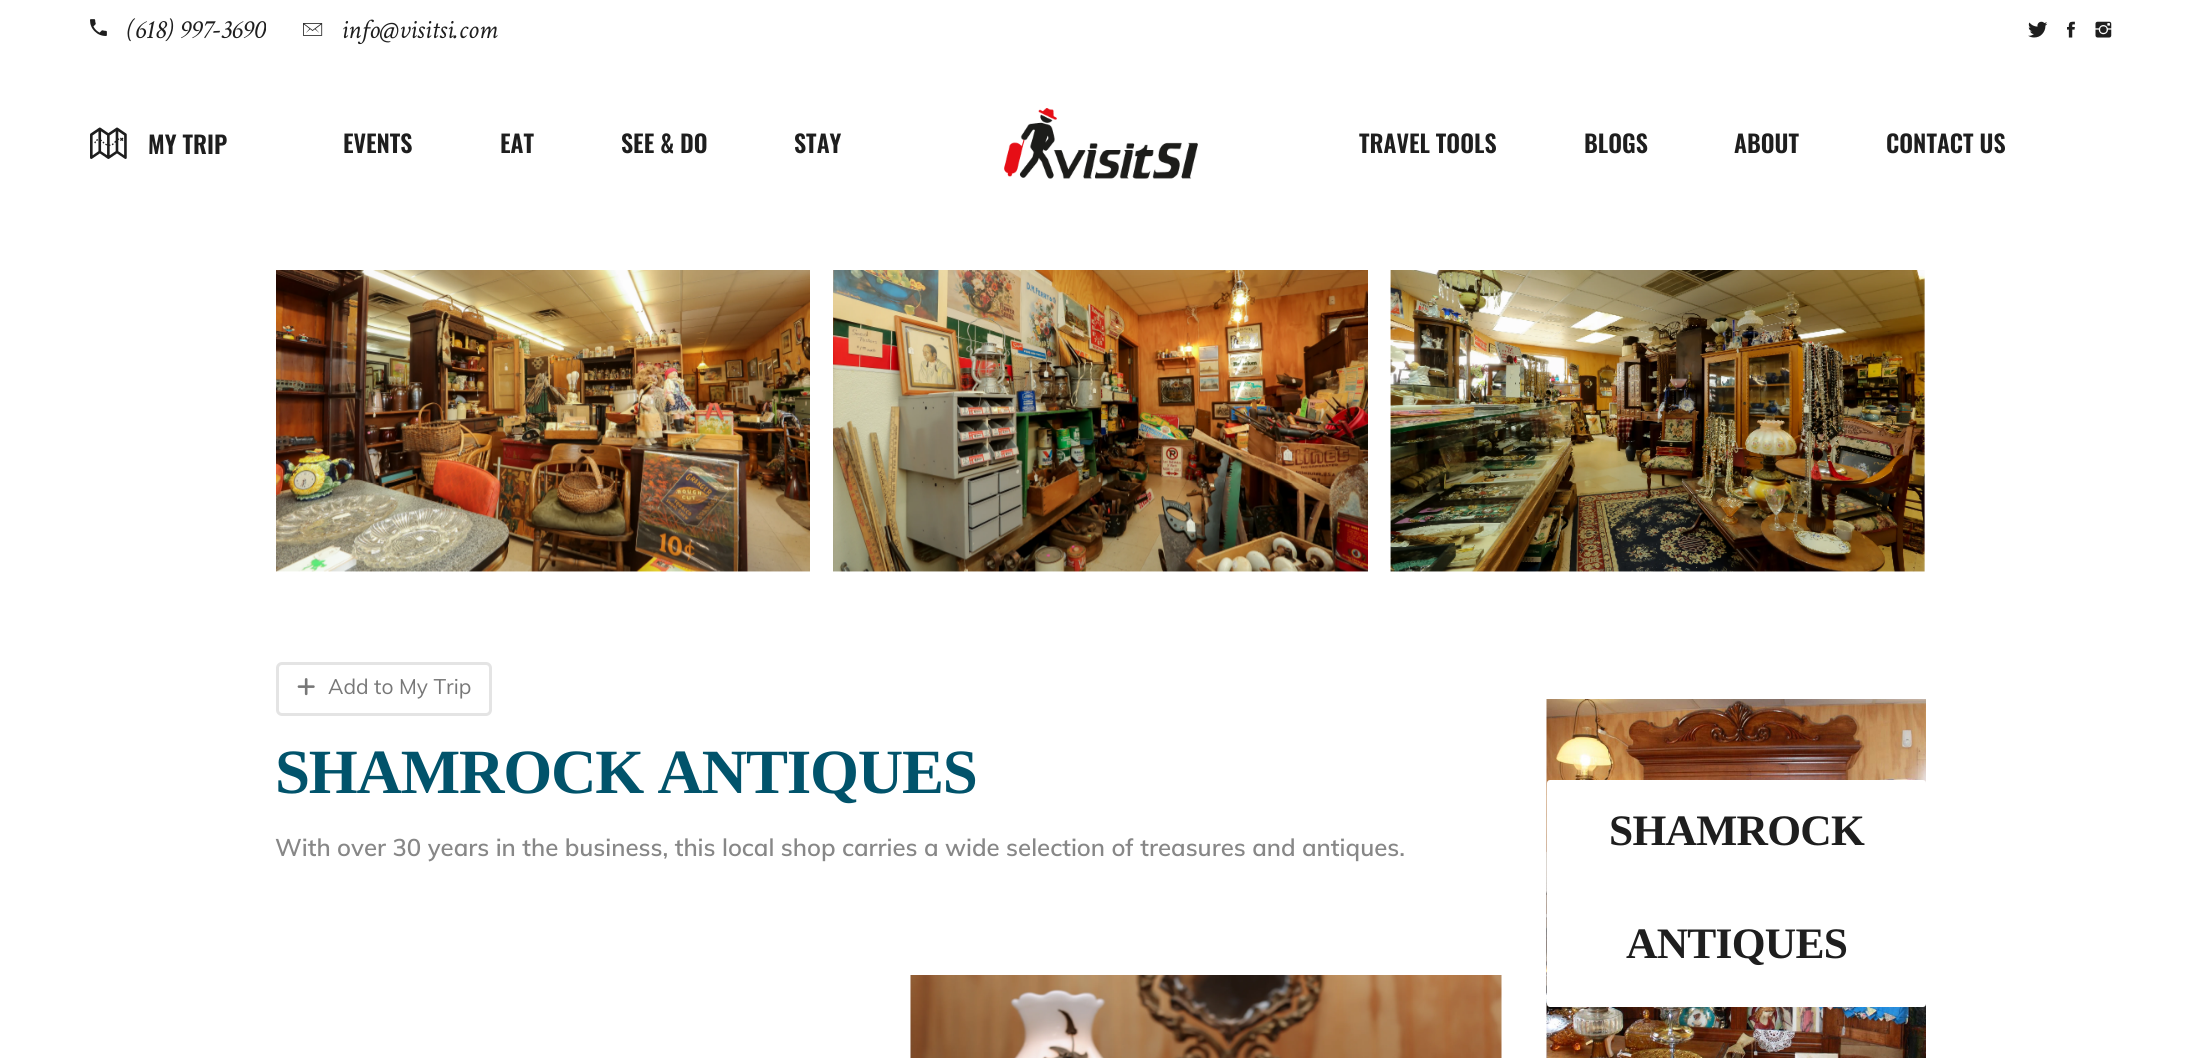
import math
import cairo

surface = cairo.ImageSurface(cairo.FORMAT_RGB24, 2200, 1058)
ctx = cairo.Context(surface)
options = cairo.FontOptions()
options.set_hint_metrics(cairo.HINT_METRICS_OFF)
options.set_hint_style(cairo.HINT_STYLE_NONE)
ctx.set_font_options(options)
ctx.set_miter_limit(4)


def spaced_text(x, y, s, letter, word):
    ctx.move_to(x, y)
    for ch in s:
        ctx.show_text(ch)
        ctx.rel_move_to(letter + word * (ch == ' '), 0)


def round_rect(x, y, w, h, r):
    ctx.new_sub_path()
    for i, (u, v) in enumerate([(x + w - r, y + h - r), (x + r, y + h - r), (x + r, y + r), (x + w - r, y + r)]):
        ctx.arc(u, v, r, i * math.pi / 2, (i + 1) * math.pi / 2)
    ctx.close_path()


def picture(path, x, y, w, h):
    ctx.save()
    ctx.set_source_surface(cairo.ImageSurface.create_from_png(path), x, y)
    ctx.rectangle(x, y, w, h)
    ctx.fill()
    ctx.restore()


ctx.set_source_rgb(1, 1, 1)
ctx.paint()
picture("img1.png", 90, 19, 17, 17)
ctx.select_font_face("Crimson Text", cairo.FONT_SLANT_ITALIC)
ctx.set_font_size(27)
ctx.set_source_rgb(0.118, 0.118, 0.118)
ctx.move_to(127, 38)
ctx.show_text("(618) 997-3690")
picture("img2.png", 303, 23, 20, 13)
ctx.move_to(341, 38)
ctx.show_text("info@visitsi.com")
picture("img3.png", 2028, 21, 20, 17)
picture("img4.png", 2067, 21, 8, 17)
picture("img5.png", 2095, 21, 17, 17)
picture("img6.png", 90, 127, 37, 32)
ctx.select_font_face("Oswald SemiBold")
ctx.set_font_size(24)
ctx.move_to(148, 154)
ctx.show_text("MY TRIP")
ctx.move_to(343, 153)
ctx.show_text("EVENTS")
ctx.move_to(500, 153)
ctx.show_text("EAT")
ctx.move_to(621, 153)
ctx.show_text("SEE & DO")
ctx.move_to(794, 153)
ctx.show_text("STAY")
picture("img7.png", 1004, 108, 194, 71)
ctx.move_to(1359, 153)
ctx.show_text("TRAVEL TOOLS")
ctx.move_to(1584, 153)
ctx.show_text("BLOGS")
ctx.move_to(1734, 153)
ctx.show_text("ABOUT")
ctx.move_to(1886, 153)
ctx.show_text("CONTACT US")
picture("img8.png", 276, 270, 534, 302)
picture("img9.png", 833, 270, 535, 302)
picture("img10.png", 1390, 270, 535, 302)
round_rect(277.5, 663.5, 213, 51, 4.5)
ctx.set_source_rgb(0.894, 0.894, 0.894)
ctx.set_line_width(3)
ctx.stroke()
picture("img11.png", 297, 678, 18, 18)
ctx.select_font_face("Muli")
ctx.set_font_size(21)
ctx.set_source_rgb(0.467, 0.467, 0.467)
ctx.move_to(328, 694)
ctx.show_text("Add to My Trip")
ctx.select_font_face("Liberation Serif", cairo.FONT_SLANT_NORMAL, cairo.FONT_WEIGHT_BOLD)
ctx.set_font_size(63)
ctx.set_source_rgb(0.004, 0.325, 0.42)
spaced_text(275, 793, "SHAMROCK ANTIQUES", -1.25, 0)
ctx.select_font_face("Muli SemiBold")
ctx.set_font_size(24)
ctx.set_source_rgb(0.529, 0.529, 0.529)
ctx.move_to(275, 856)
ctx.show_text("With over 30 years in the business, this local shop carries a wide selection of treasures and antiques.")
picture("img12.png", 910, 975, 592, 83)
picture("img13.png", 1546, 699, 380, 359)
ctx.set_source_rgb(1, 1, 1)
round_rect(1547, 780, 379, 227, 3)
ctx.fill()
ctx.select_font_face("Liberation Serif", cairo.FONT_SLANT_NORMAL, cairo.FONT_WEIGHT_BOLD)
ctx.set_font_size(43.5)
ctx.set_source_rgb(0.118, 0.118, 0.118)
spaced_text(1609, 845, "SHAMROCK", -0.75, 0)
spaced_text(1626, 958, "ANTIQUES", -0.75, 0)
surface.write_to_png("page.png")
